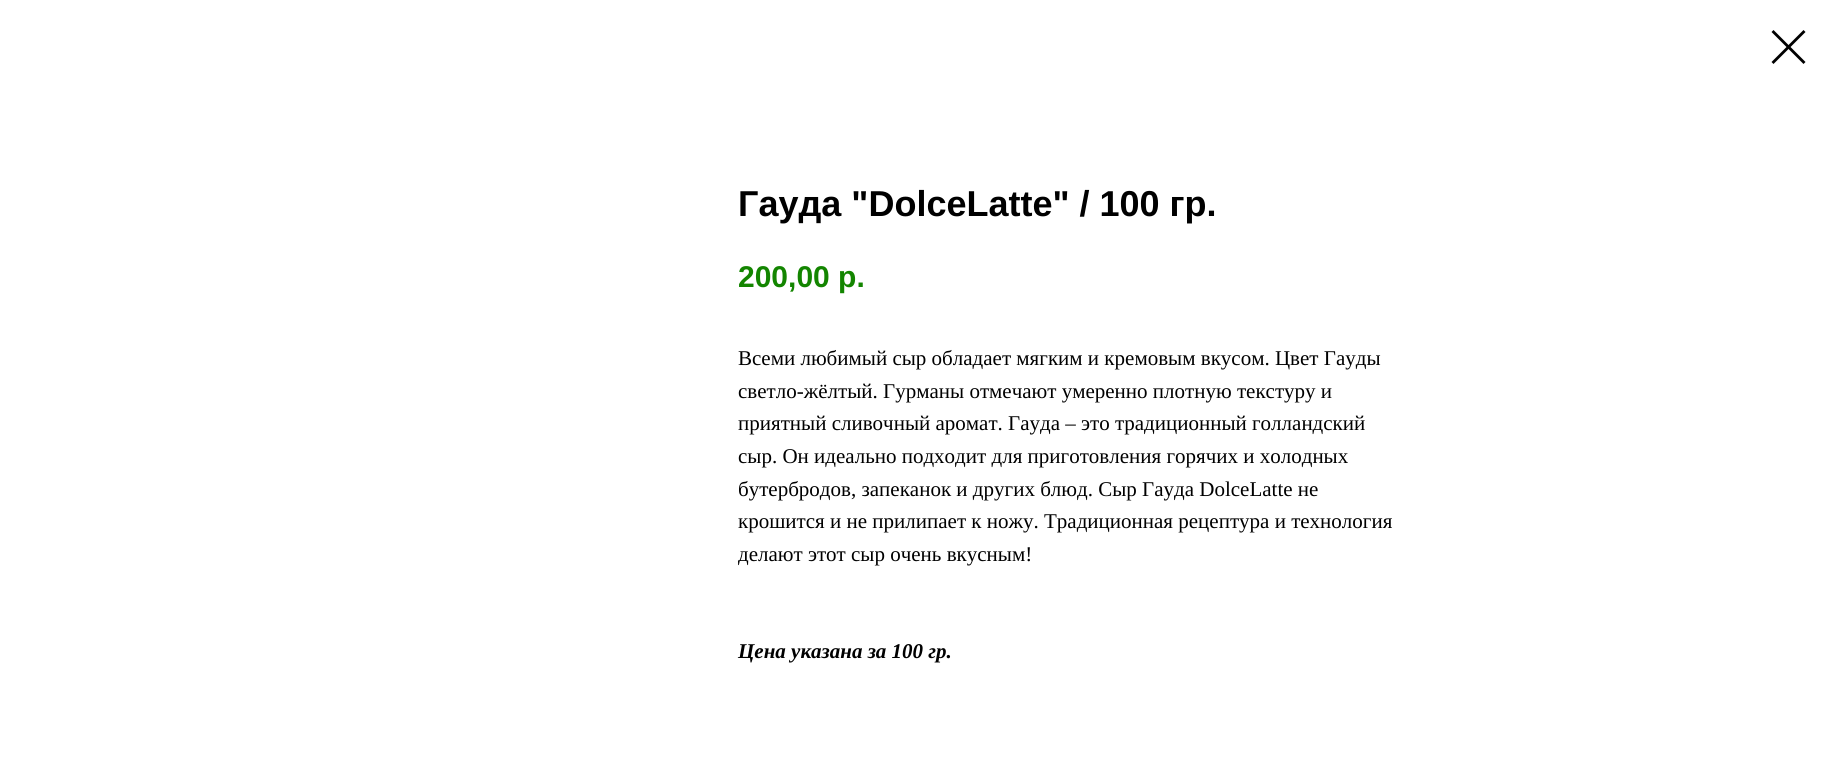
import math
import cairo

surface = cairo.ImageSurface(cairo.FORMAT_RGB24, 1835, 768)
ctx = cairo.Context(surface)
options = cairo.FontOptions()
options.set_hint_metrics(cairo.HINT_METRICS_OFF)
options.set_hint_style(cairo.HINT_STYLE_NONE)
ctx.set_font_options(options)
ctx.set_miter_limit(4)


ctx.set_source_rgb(1, 1, 1)
ctx.paint()
ctx.set_source_rgb(0, 0, 0)
ctx.set_fill_rule(cairo.FILL_RULE_EVEN_ODD)
ctx.new_path()
ctx.move_to(1771.5, 32)
ctx.line_to(1773.5, 30)
ctx.line_to(1805.5, 62)
ctx.line_to(1803.5, 64)
ctx.close_path()
ctx.fill()
ctx.new_path()
ctx.move_to(1803.5, 30)
ctx.line_to(1805.5, 32)
ctx.line_to(1773.5, 64)
ctx.line_to(1771.5, 62)
ctx.close_path()
ctx.fill()
ctx.select_font_face("Liberation Sans", cairo.FONT_SLANT_NORMAL, cairo.FONT_WEIGHT_BOLD)
ctx.set_font_size(36)
ctx.move_to(738, 216)
ctx.show_text("Гауда \"DolceLatte\" / 100 гр.")
ctx.set_font_size(30)
ctx.set_source_rgb(0.078, 0.522, 0)
ctx.move_to(738, 287)
ctx.show_text("200,00 р.")
ctx.select_font_face("Liberation Serif")
ctx.set_font_size(21)
ctx.set_source_rgb(0, 0, 0)
ctx.move_to(738, 365)
ctx.show_text("Всеми любимый сыр обладает мягким и кремовым вкусом. Цвет Гауды")
ctx.move_to(738, 398)
ctx.show_text("светло-жёлтый. Гурманы отмечают умеренно плотную текстуру и")
ctx.move_to(738, 430)
ctx.show_text("приятный сливочный аромат. Гауда – это традиционный голландский")
ctx.move_to(738, 463)
ctx.show_text("сыр. Он идеально подходит для приготовления горячих и холодных")
ctx.move_to(738, 496)
ctx.show_text("бутербродов, запеканок и других блюд. Сыр Гауда DolceLatte не")
ctx.move_to(738, 528)
ctx.show_text("крошится и не прилипает к ножу. Традиционная рецептура и технология")
ctx.move_to(738, 561)
ctx.show_text("делают этот сыр очень вкусным!")
ctx.select_font_face("Liberation Serif", cairo.FONT_SLANT_ITALIC, cairo.FONT_WEIGHT_BOLD)
ctx.move_to(738, 658)
ctx.show_text("Цена указана за 100 гр.")
surface.write_to_png("page.png")
